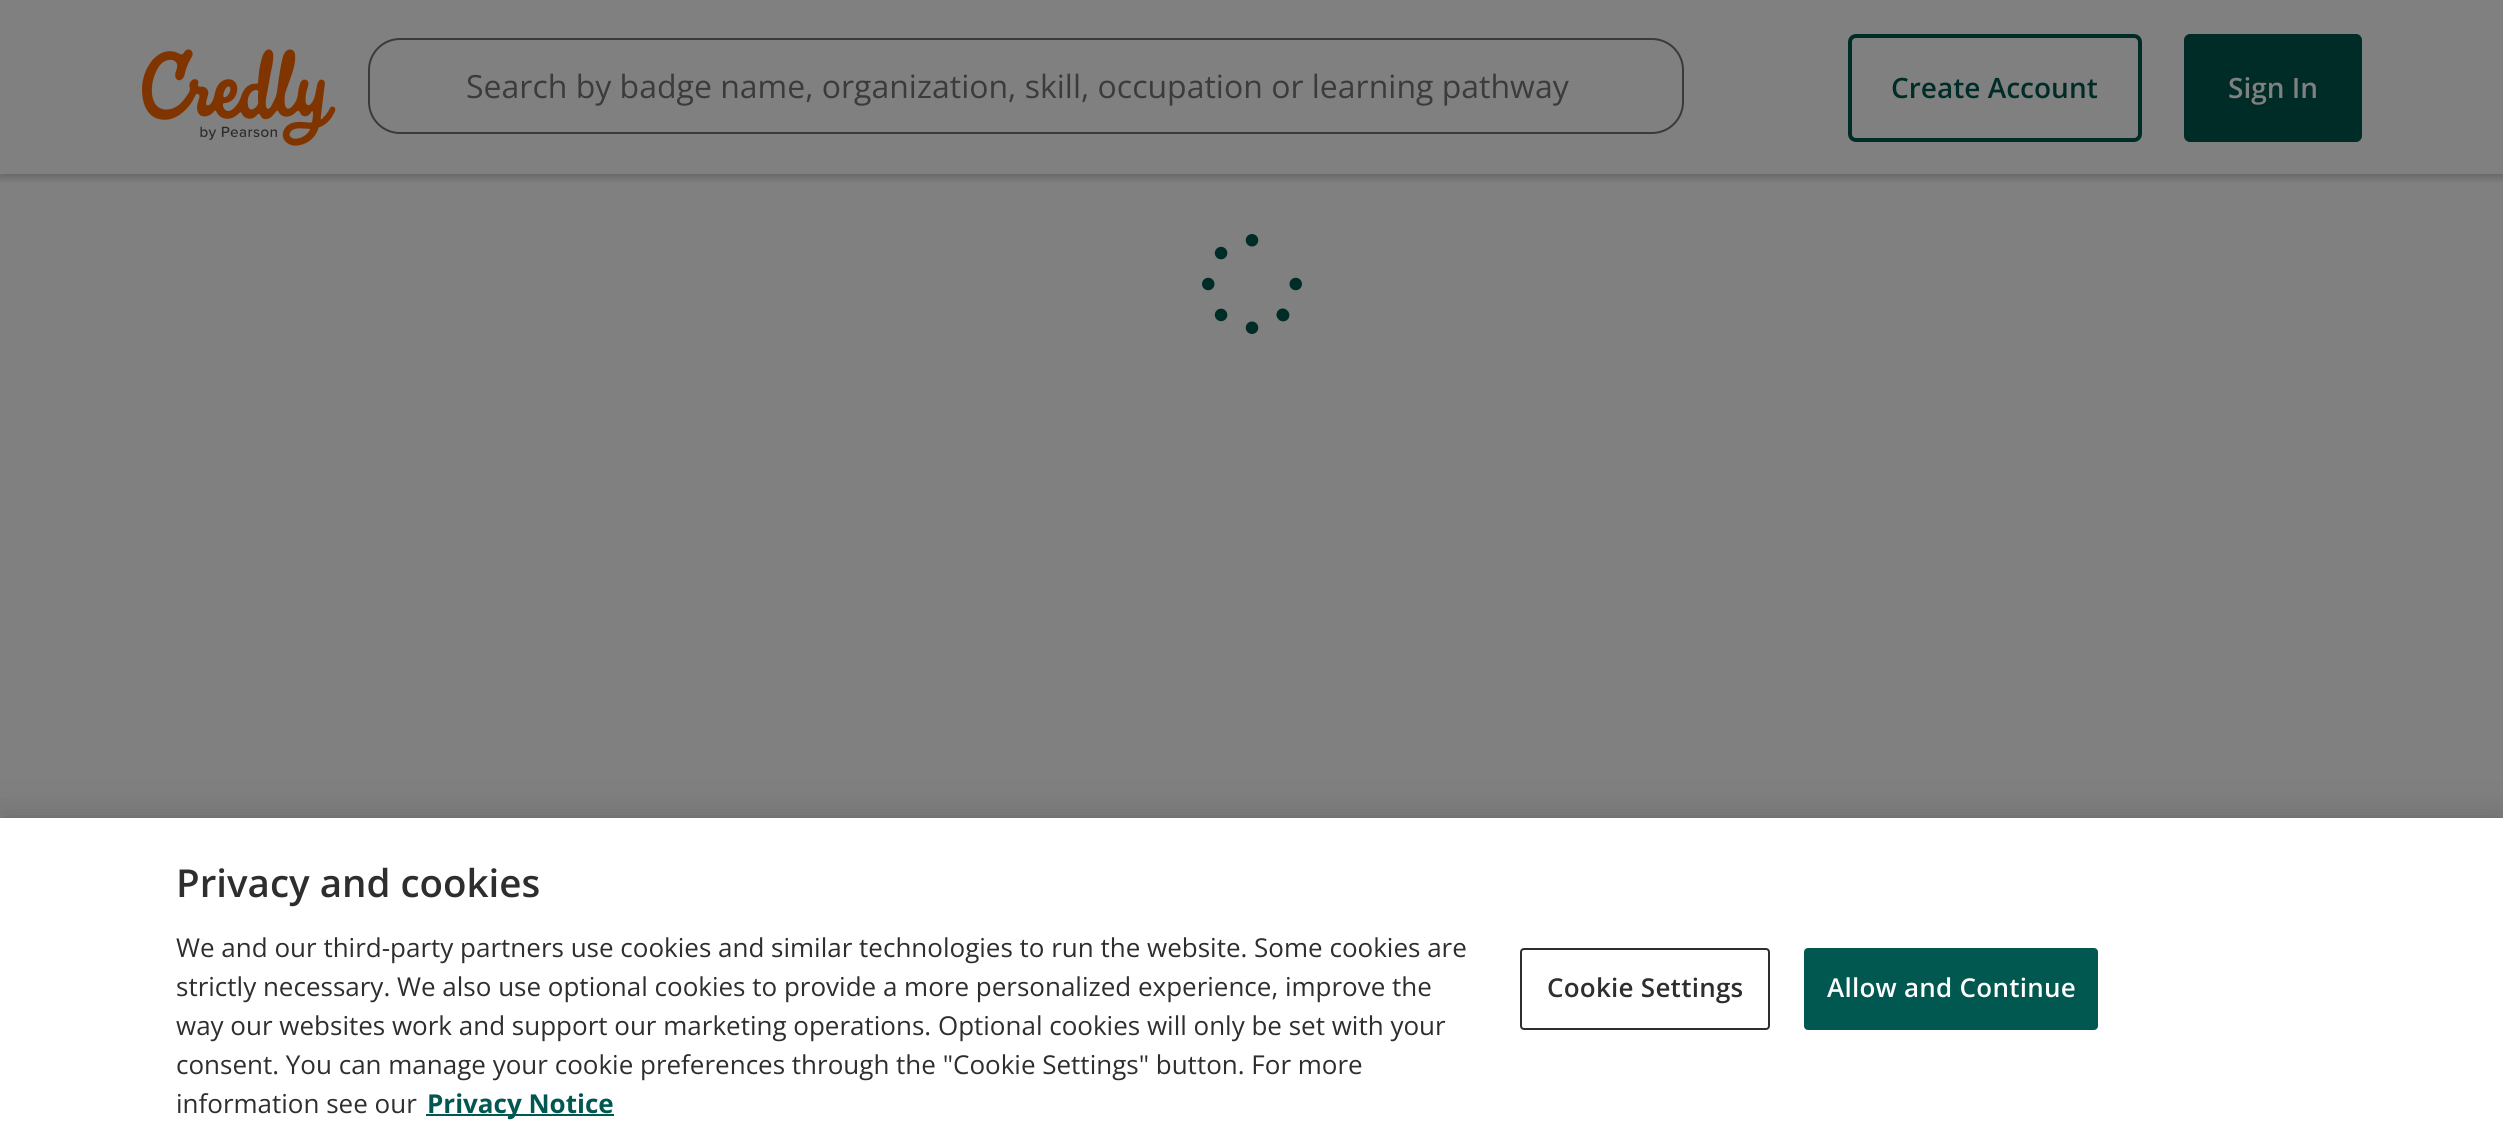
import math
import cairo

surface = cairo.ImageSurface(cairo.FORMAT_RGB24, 2503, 1143)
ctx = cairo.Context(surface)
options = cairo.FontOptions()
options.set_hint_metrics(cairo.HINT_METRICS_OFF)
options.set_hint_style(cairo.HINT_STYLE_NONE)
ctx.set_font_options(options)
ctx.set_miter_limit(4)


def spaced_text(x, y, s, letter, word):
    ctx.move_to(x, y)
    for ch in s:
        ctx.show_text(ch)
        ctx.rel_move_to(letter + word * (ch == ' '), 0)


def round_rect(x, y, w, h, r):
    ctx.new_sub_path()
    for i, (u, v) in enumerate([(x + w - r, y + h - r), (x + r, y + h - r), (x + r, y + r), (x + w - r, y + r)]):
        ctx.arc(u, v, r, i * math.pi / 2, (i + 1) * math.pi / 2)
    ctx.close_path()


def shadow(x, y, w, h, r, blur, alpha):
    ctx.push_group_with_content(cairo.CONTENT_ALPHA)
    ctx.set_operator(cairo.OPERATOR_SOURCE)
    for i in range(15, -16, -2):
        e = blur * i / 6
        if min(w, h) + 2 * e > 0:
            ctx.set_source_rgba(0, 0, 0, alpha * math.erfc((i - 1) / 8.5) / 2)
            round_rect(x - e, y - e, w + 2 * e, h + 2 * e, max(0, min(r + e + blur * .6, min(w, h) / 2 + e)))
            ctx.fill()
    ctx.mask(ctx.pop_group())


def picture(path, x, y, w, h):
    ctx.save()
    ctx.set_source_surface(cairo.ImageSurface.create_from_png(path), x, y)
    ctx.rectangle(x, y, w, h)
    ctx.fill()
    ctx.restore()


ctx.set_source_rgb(0.502, 0.502, 0.502)
ctx.paint()
ctx.save()
ctx.rectangle(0, 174, 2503, 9)
ctx.clip()
ctx.set_source_rgb(0, 0, 0)
shadow(0, 2, 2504, 176, 0, 4, 0.2)
ctx.restore()
picture("img1.png", 142, 49, 194, 97)
round_rect(369, 39, 1314, 94, 31)
ctx.set_source_rgb(0.227, 0.227, 0.227)
ctx.stroke()
ctx.select_font_face("Open Sans")
ctx.set_font_size(32)
ctx.set_source_rgb(0.231, 0.231, 0.231)
ctx.move_to(466, 98)
ctx.show_text("Search by badge name, organization, skill, occupation or learning pathway")
round_rect(1850, 36, 290, 104, 6)
ctx.set_source_rgb(0, 0.173, 0.157)
ctx.set_line_width(4)
ctx.stroke()
ctx.select_font_face("Open Sans SemiBold")
ctx.set_font_size(28)
ctx.move_to(1891, 98)
ctx.show_text("Create Account")
round_rect(2186, 36, 174, 104, 4)
ctx.fill_preserve()
ctx.stroke()
ctx.set_source_rgb(0.502, 0.502, 0.502)
ctx.move_to(2228, 98)
ctx.show_text("Sign In")
picture("img2.png", 1202, 234, 100, 100)
ctx.set_source_rgb(0, 0, 0)
shadow(0, 818, 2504, 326, 0, 18, 0.2)
ctx.set_source_rgb(1, 1, 1)
ctx.rectangle(0, 818, 2503, 325)
ctx.fill()
ctx.set_font_size(38.5)
ctx.set_source_rgb(0.18, 0.18, 0.18)
ctx.move_to(176, 897)
ctx.show_text("Privacy and cookies")
ctx.select_font_face("Open Sans")
ctx.set_font_size(26)
ctx.move_to(176, 957)
ctx.show_text("We and our third-party partners use cookies and similar technologies to run the website. Some cookies are")
ctx.move_to(176, 996)
ctx.show_text("strictly necessary. We also use optional cookies to provide a more personalized experience, improve the")
ctx.move_to(176, 1035)
ctx.show_text("way our websites work and support our marketing operations. Optional cookies will only be set with your")
ctx.move_to(176, 1074)
ctx.show_text("consent. You can manage your cookie preferences through the \"Cookie Settings\" button. For more")
ctx.move_to(176, 1113)
ctx.show_text("information see our")
ctx.set_source_rgb(0, 0.345, 0.314)
ctx.rectangle(426, 1114, 188, 2)
ctx.fill()
ctx.select_font_face("Open Sans", cairo.FONT_SLANT_NORMAL, cairo.FONT_WEIGHT_BOLD)
ctx.move_to(427, 1113)
ctx.show_text("Privacy Notice")
round_rect(1521, 949, 248, 80, 3)
ctx.set_source_rgb(0.18, 0.18, 0.18)
ctx.set_line_width(2)
ctx.stroke()
ctx.select_font_face("Open Sans SemiBold")
spaced_text(1547, 997, "Cookie Settings", 0.25, 0)
ctx.set_source_rgb(0, 0.345, 0.314)
round_rect(1805, 949, 292, 80, 3)
ctx.fill_preserve()
ctx.stroke()
ctx.set_source_rgb(0.996, 0.996, 0.996)
spaced_text(1827, 997, "Allow and Continue", 0.25, 0)
surface.write_to_png("page.png")
